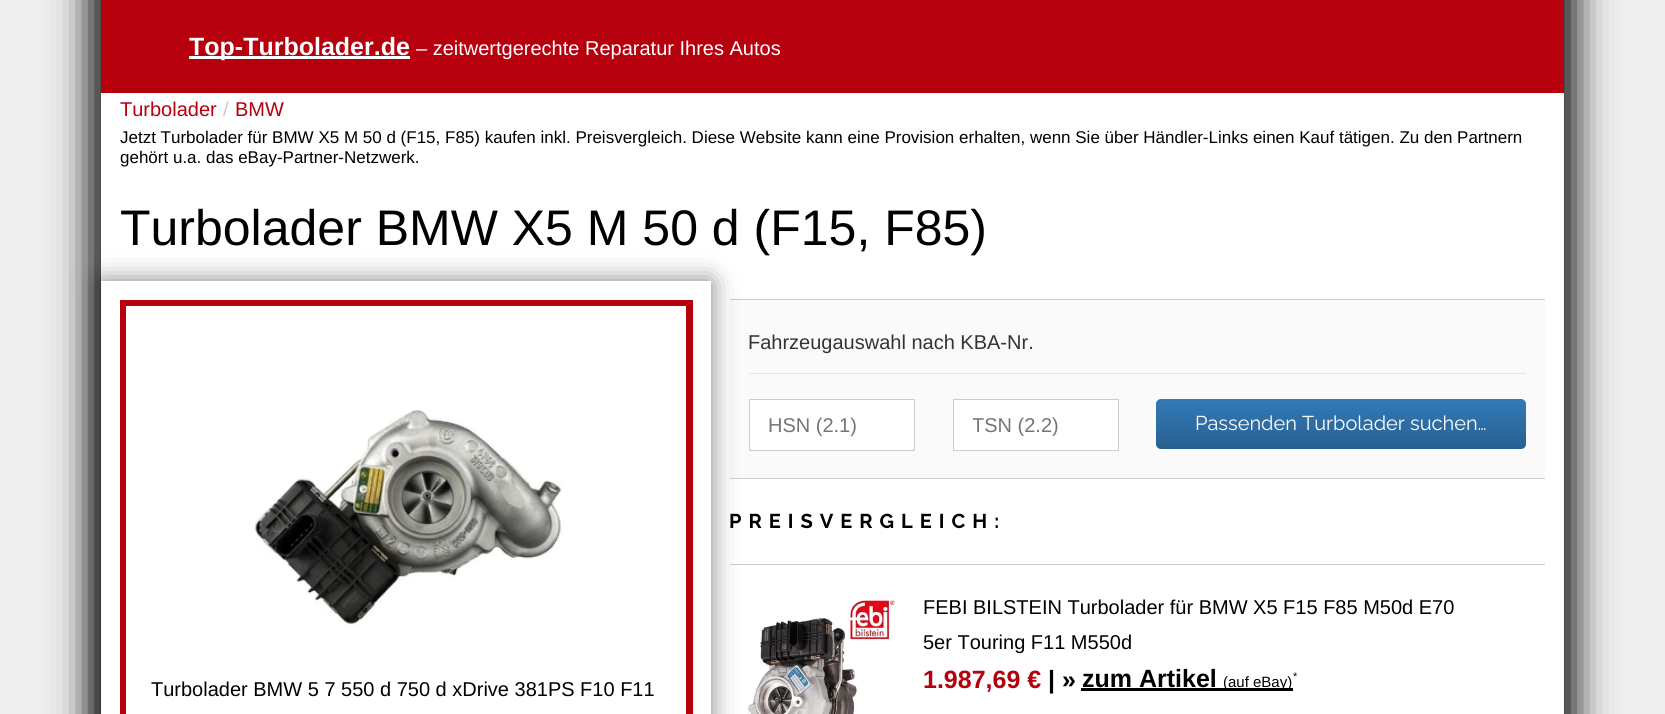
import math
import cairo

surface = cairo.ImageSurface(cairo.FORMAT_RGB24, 1665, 714)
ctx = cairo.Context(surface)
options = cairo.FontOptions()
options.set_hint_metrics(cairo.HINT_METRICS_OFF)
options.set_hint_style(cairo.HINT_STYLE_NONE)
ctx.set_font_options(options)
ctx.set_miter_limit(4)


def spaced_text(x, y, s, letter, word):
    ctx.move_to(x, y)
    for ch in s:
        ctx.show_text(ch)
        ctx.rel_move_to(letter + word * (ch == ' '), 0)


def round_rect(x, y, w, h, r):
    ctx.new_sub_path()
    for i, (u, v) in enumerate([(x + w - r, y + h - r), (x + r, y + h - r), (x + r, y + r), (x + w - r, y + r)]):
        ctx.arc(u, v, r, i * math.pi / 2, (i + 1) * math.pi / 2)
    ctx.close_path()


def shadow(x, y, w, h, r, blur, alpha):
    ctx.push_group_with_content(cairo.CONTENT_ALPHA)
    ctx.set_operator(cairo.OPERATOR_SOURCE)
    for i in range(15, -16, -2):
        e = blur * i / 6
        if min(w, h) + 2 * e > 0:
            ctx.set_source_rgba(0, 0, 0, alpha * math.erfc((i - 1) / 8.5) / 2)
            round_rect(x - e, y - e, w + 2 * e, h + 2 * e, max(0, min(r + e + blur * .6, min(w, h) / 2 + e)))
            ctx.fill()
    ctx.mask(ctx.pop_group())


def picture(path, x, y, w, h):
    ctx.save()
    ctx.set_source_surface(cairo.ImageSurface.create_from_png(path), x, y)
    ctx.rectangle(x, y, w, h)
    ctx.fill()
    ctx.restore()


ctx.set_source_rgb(0.933, 0.933, 0.933)
ctx.paint()
ctx.set_source_rgb(0, 0, 0)
shadow(91, -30, 1483, 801, 0, 19, 1)
ctx.set_source_rgb(0.714, 0, 0.055)
ctx.rectangle(101, 0, 1463, 93)
ctx.fill()
ctx.set_source_rgb(1, 1, 1)
ctx.rectangle(189, 56, 221, 3)
ctx.fill()
ctx.select_font_face("Liberation Sans", cairo.FONT_SLANT_NORMAL, cairo.FONT_WEIGHT_BOLD)
ctx.set_font_size(25)
ctx.move_to(189, 55)
ctx.show_text("Top-Turbolader.de")
ctx.select_font_face("Liberation Sans")
ctx.set_font_size(20)
ctx.move_to(416, 55)
ctx.show_text("– zeitwertgerechte Reparatur Ihres Autos")
ctx.rectangle(101, 93, 1463, 621)
ctx.fill()
ctx.set_source_rgb(0.714, 0, 0.055)
ctx.move_to(120, 116)
ctx.show_text("Turbolader")
ctx.set_source_rgb(0.8, 0.8, 0.8)
ctx.move_to(223, 116)
ctx.show_text("/")
ctx.set_source_rgb(0.714, 0, 0.055)
ctx.move_to(235, 116)
ctx.show_text("BMW")
ctx.set_font_size(17)
ctx.set_source_rgb(0, 0, 0)
ctx.move_to(120, 143)
ctx.show_text("Jetzt Turbolader für BMW X5 M 50 d (F15, F85) kaufen inkl. Preisvergleich. Diese Website kann eine Provision erhalten, wenn Sie über Händler-Links einen Kauf tätigen. Zu den Partnern")
ctx.move_to(120, 163)
ctx.show_text("gehört u.a. das eBay-Partner-Netzwerk.")
ctx.set_font_size(50)
ctx.move_to(120, 245)
ctx.show_text("Turbolader BMW X5 M 50 d (F15, F85)")
ctx.set_source_rgb(0.98, 0.98, 0.98)
ctx.rectangle(730, 300, 815, 178)
ctx.fill()
ctx.set_source_rgb(0.8, 0.8, 0.8)
ctx.rectangle(730, 299, 815, 1)
ctx.fill()
ctx.set_source_rgb(0.898, 0.898, 0.898)
ctx.rectangle(749, 373, 777, 1)
ctx.fill()
ctx.set_source_rgb(1, 1, 1)
ctx.rectangle(749.5, 399.5, 165, 51)
ctx.fill_preserve()
ctx.set_source_rgb(0.8, 0.8, 0.8)
ctx.set_line_width(1)
ctx.stroke()
ctx.rectangle(730, 478, 815, 1)
ctx.fill()
ctx.rectangle(730, 564, 815, 1)
ctx.fill()
picture("img2.png", 748, 599, 148, 115)
ctx.save()
ctx.set_fill_rule(cairo.FILL_RULE_EVEN_ODD)
ctx.new_path()
ctx.move_to(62, 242)
ctx.line_to(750, 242)
ctx.line_to(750, 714)
ctx.line_to(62, 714)
ctx.close_path()
ctx.move_to(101, 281)
ctx.line_to(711, 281)
ctx.line_to(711, 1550)
ctx.line_to(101, 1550)
ctx.close_path()
ctx.clip()
ctx.set_source_rgb(0, 0, 0)
shadow(101, 281, 610, 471, 0, 12.5, 0.5)
ctx.restore()
ctx.set_source_rgb(0.714, 0, 0.055)
ctx.rectangle(120, 300, 573, 6)
ctx.fill()
ctx.rectangle(686, 300, 7, 414)
ctx.fill()
ctx.rectangle(120, 300, 6, 414)
ctx.fill()
picture("img1.png", 255, 409, 308, 217)
ctx.set_font_size(20)
ctx.set_source_rgb(0, 0, 0)
ctx.move_to(151, 696)
ctx.show_text("Turbolader BMW 5 7 550 d 750 d xDrive 381PS F10 F11")
ctx.set_source_rgb(0.2, 0.2, 0.2)
ctx.move_to(748, 349)
ctx.show_text("Fahrzeugauswahl nach KBA-Nr.")
ctx.set_source_rgb(0.459, 0.459, 0.459)
ctx.move_to(768, 432)
ctx.show_text("HSN (2.1)")
ctx.set_source_rgb(1, 1, 1)
ctx.rectangle(953.5, 399.5, 165, 51)
ctx.fill_preserve()
ctx.set_source_rgb(0.8, 0.8, 0.8)
ctx.stroke()
ctx.save()
ctx.rectangle(973, 414, 126, 22)
ctx.clip()
ctx.set_source_rgb(0.459, 0.459, 0.459)
ctx.move_to(972, 432)
ctx.show_text("TSN (2.2)")
ctx.restore()
gradient = cairo.LinearGradient(1341, 399, 1341, 449)
gradient.add_color_stop_rgba(0, 0.2, 0.478, 0.718, 1)
gradient.add_color_stop_rgba(1, 0.157, 0.376, 0.565, 1)
ctx.set_source(gradient)
round_rect(1156, 399, 370, 50, 5)
ctx.fill()
ctx.select_font_face("Raleway")
ctx.set_source_rgb(1, 1, 1)
ctx.move_to(1195, 430)
ctx.show_text("Passenden Turbolader suchen…")
ctx.select_font_face("Raleway", cairo.FONT_SLANT_NORMAL, cairo.FONT_WEIGHT_BOLD)
ctx.set_source_rgb(0, 0, 0)
spaced_text(729, 528, "PREISVERGLEICH:", 7, 0)
ctx.select_font_face("Liberation Sans")
ctx.move_to(923, 614)
ctx.show_text("FEBI BILSTEIN Turbolader für BMW X5 F15 F85 M50d E70")
ctx.move_to(923, 649)
ctx.show_text("5er Touring F11 M550d")
ctx.select_font_face("Liberation Sans", cairo.FONT_SLANT_NORMAL, cairo.FONT_WEIGHT_BOLD)
ctx.set_font_size(25)
ctx.set_source_rgb(0.714, 0, 0.055)
ctx.move_to(923, 688)
ctx.show_text("1.987,69 €")
ctx.set_source_rgb(0, 0, 0)
ctx.move_to(1048, 688)
ctx.show_text("| »")
ctx.move_to(1082, 687)
ctx.show_text("zum Artikel")
ctx.rectangle(1081, 688, 212, 3)
ctx.fill()
ctx.select_font_face("Liberation Sans")
ctx.set_font_size(15)
ctx.move_to(1223, 687)
ctx.show_text("(auf eBay)")
ctx.set_font_size(11)
ctx.move_to(1293, 680)
ctx.show_text("*")
surface.write_to_png("page.png")
